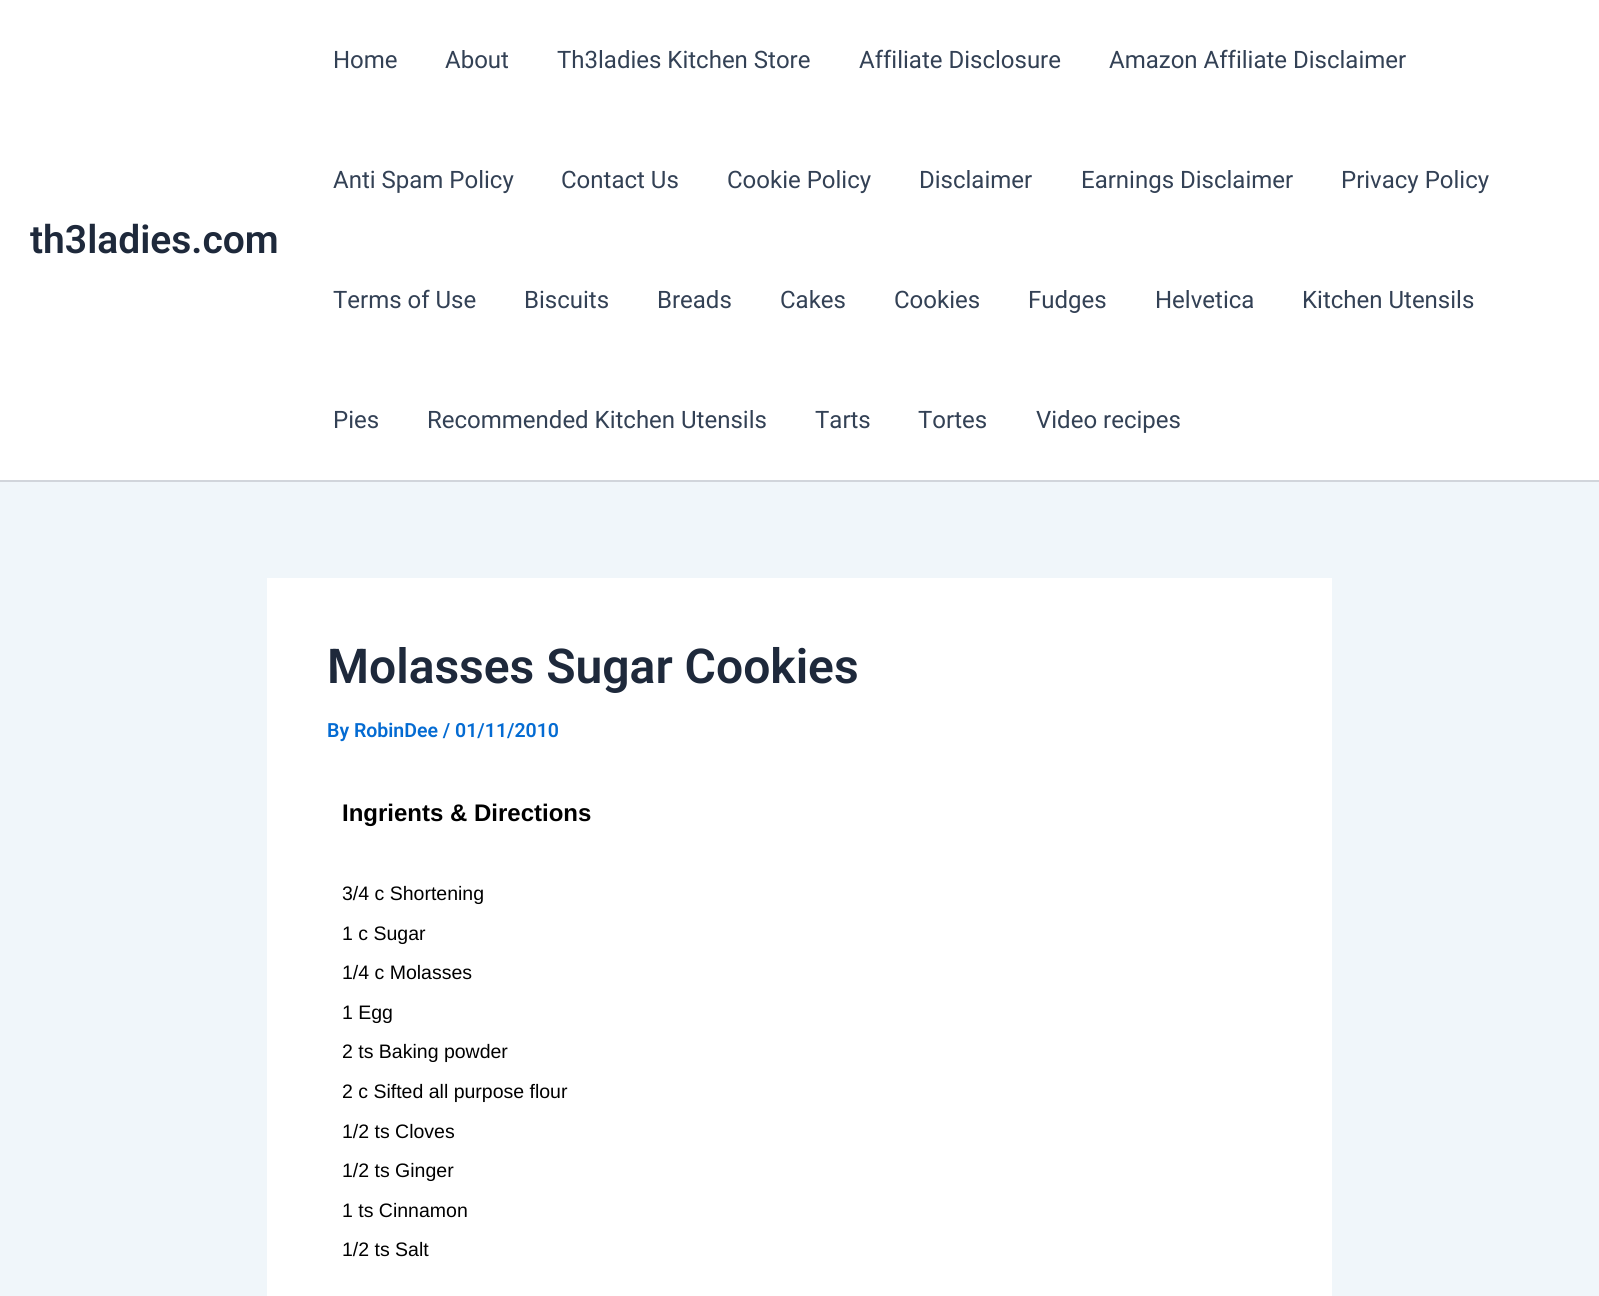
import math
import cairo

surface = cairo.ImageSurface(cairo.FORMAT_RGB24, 1599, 1296)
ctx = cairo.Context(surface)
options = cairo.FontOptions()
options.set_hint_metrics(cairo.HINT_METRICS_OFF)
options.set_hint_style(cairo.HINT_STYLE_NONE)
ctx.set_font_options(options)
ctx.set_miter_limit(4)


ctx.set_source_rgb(0.941, 0.961, 0.98)
ctx.paint()
ctx.set_source_rgb(1, 1, 1)
ctx.rectangle(0, 0, 1599, 480)
ctx.fill()
ctx.set_source_rgb(0.82, 0.835, 0.859)
ctx.rectangle(0, 480, 1599, 2)
ctx.fill()
ctx.select_font_face("Roboto SemiBold")
ctx.set_font_size(39)
ctx.set_source_rgb(0.118, 0.161, 0.231)
ctx.move_to(30, 253)
ctx.show_text("th3ladies.com")
ctx.select_font_face("Roboto")
ctx.set_font_size(24)
ctx.set_source_rgb(0.2, 0.255, 0.333)
ctx.move_to(333, 68)
ctx.show_text("Home")
ctx.move_to(445, 68)
ctx.show_text("About")
ctx.move_to(557, 68)
ctx.show_text("Th3ladies Kitchen Store")
ctx.move_to(859, 68)
ctx.show_text("Affiliate Disclosure")
ctx.move_to(1109, 68)
ctx.show_text("Amazon Affiliate Disclaimer")
ctx.move_to(333, 188)
ctx.show_text("Anti Spam Policy")
ctx.move_to(561, 188)
ctx.show_text("Contact Us")
ctx.move_to(727, 188)
ctx.show_text("Cookie Policy")
ctx.move_to(919, 188)
ctx.show_text("Disclaimer")
ctx.move_to(1081, 188)
ctx.show_text("Earnings Disclaimer")
ctx.move_to(1341, 188)
ctx.show_text("Privacy Policy")
ctx.move_to(333, 308)
ctx.show_text("Terms of Use")
ctx.move_to(524, 308)
ctx.show_text("Biscuits")
ctx.move_to(657, 308)
ctx.show_text("Breads")
ctx.move_to(780, 308)
ctx.show_text("Cakes")
ctx.move_to(894, 308)
ctx.show_text("Cookies")
ctx.move_to(1028, 308)
ctx.show_text("Fudges")
ctx.move_to(1155, 308)
ctx.show_text("Helvetica")
ctx.move_to(1302, 308)
ctx.show_text("Kitchen Utensils")
ctx.move_to(333, 428)
ctx.show_text("Pies")
ctx.move_to(427, 428)
ctx.show_text("Recommended Kitchen Utensils")
ctx.move_to(815, 428)
ctx.show_text("Tarts")
ctx.move_to(918, 428)
ctx.show_text("Tortes")
ctx.move_to(1036, 428)
ctx.show_text("Video recipes")
ctx.set_source_rgb(1, 1, 1)
ctx.rectangle(267, 578, 1065, 718)
ctx.fill()
ctx.select_font_face("Roboto SemiBold")
ctx.set_font_size(48)
ctx.set_source_rgb(0.118, 0.161, 0.231)
ctx.move_to(327, 683)
ctx.show_text("Molasses Sugar Cookies")
ctx.set_font_size(19.5)
ctx.set_source_rgb(0.016, 0.42, 0.824)
ctx.move_to(327, 737)
ctx.show_text("By RobinDee / 01/11/2010")
ctx.select_font_face("Liberation Sans", cairo.FONT_SLANT_NORMAL, cairo.FONT_WEIGHT_BOLD)
ctx.set_font_size(24)
ctx.set_source_rgb(0, 0, 0)
ctx.move_to(342, 821)
ctx.show_text("Ingrients & Directions")
ctx.select_font_face("Liberation Sans")
ctx.set_font_size(19.5)
ctx.move_to(342, 900)
ctx.show_text("3/4 c Shortening")
ctx.move_to(342, 940)
ctx.show_text("1 c Sugar")
ctx.move_to(342, 979)
ctx.show_text("1/4 c Molasses")
ctx.move_to(342, 1019)
ctx.show_text("1 Egg")
ctx.move_to(342, 1058)
ctx.show_text("2 ts Baking powder")
ctx.move_to(342, 1098)
ctx.show_text("2 c Sifted all purpose flour")
ctx.move_to(342, 1138)
ctx.show_text("1/2 ts Cloves")
ctx.move_to(342, 1177)
ctx.show_text("1/2 ts Ginger")
ctx.move_to(342, 1217)
ctx.show_text("1 ts Cinnamon")
ctx.move_to(342, 1256)
ctx.show_text("1/2 ts Salt")
surface.write_to_png("page.png")
